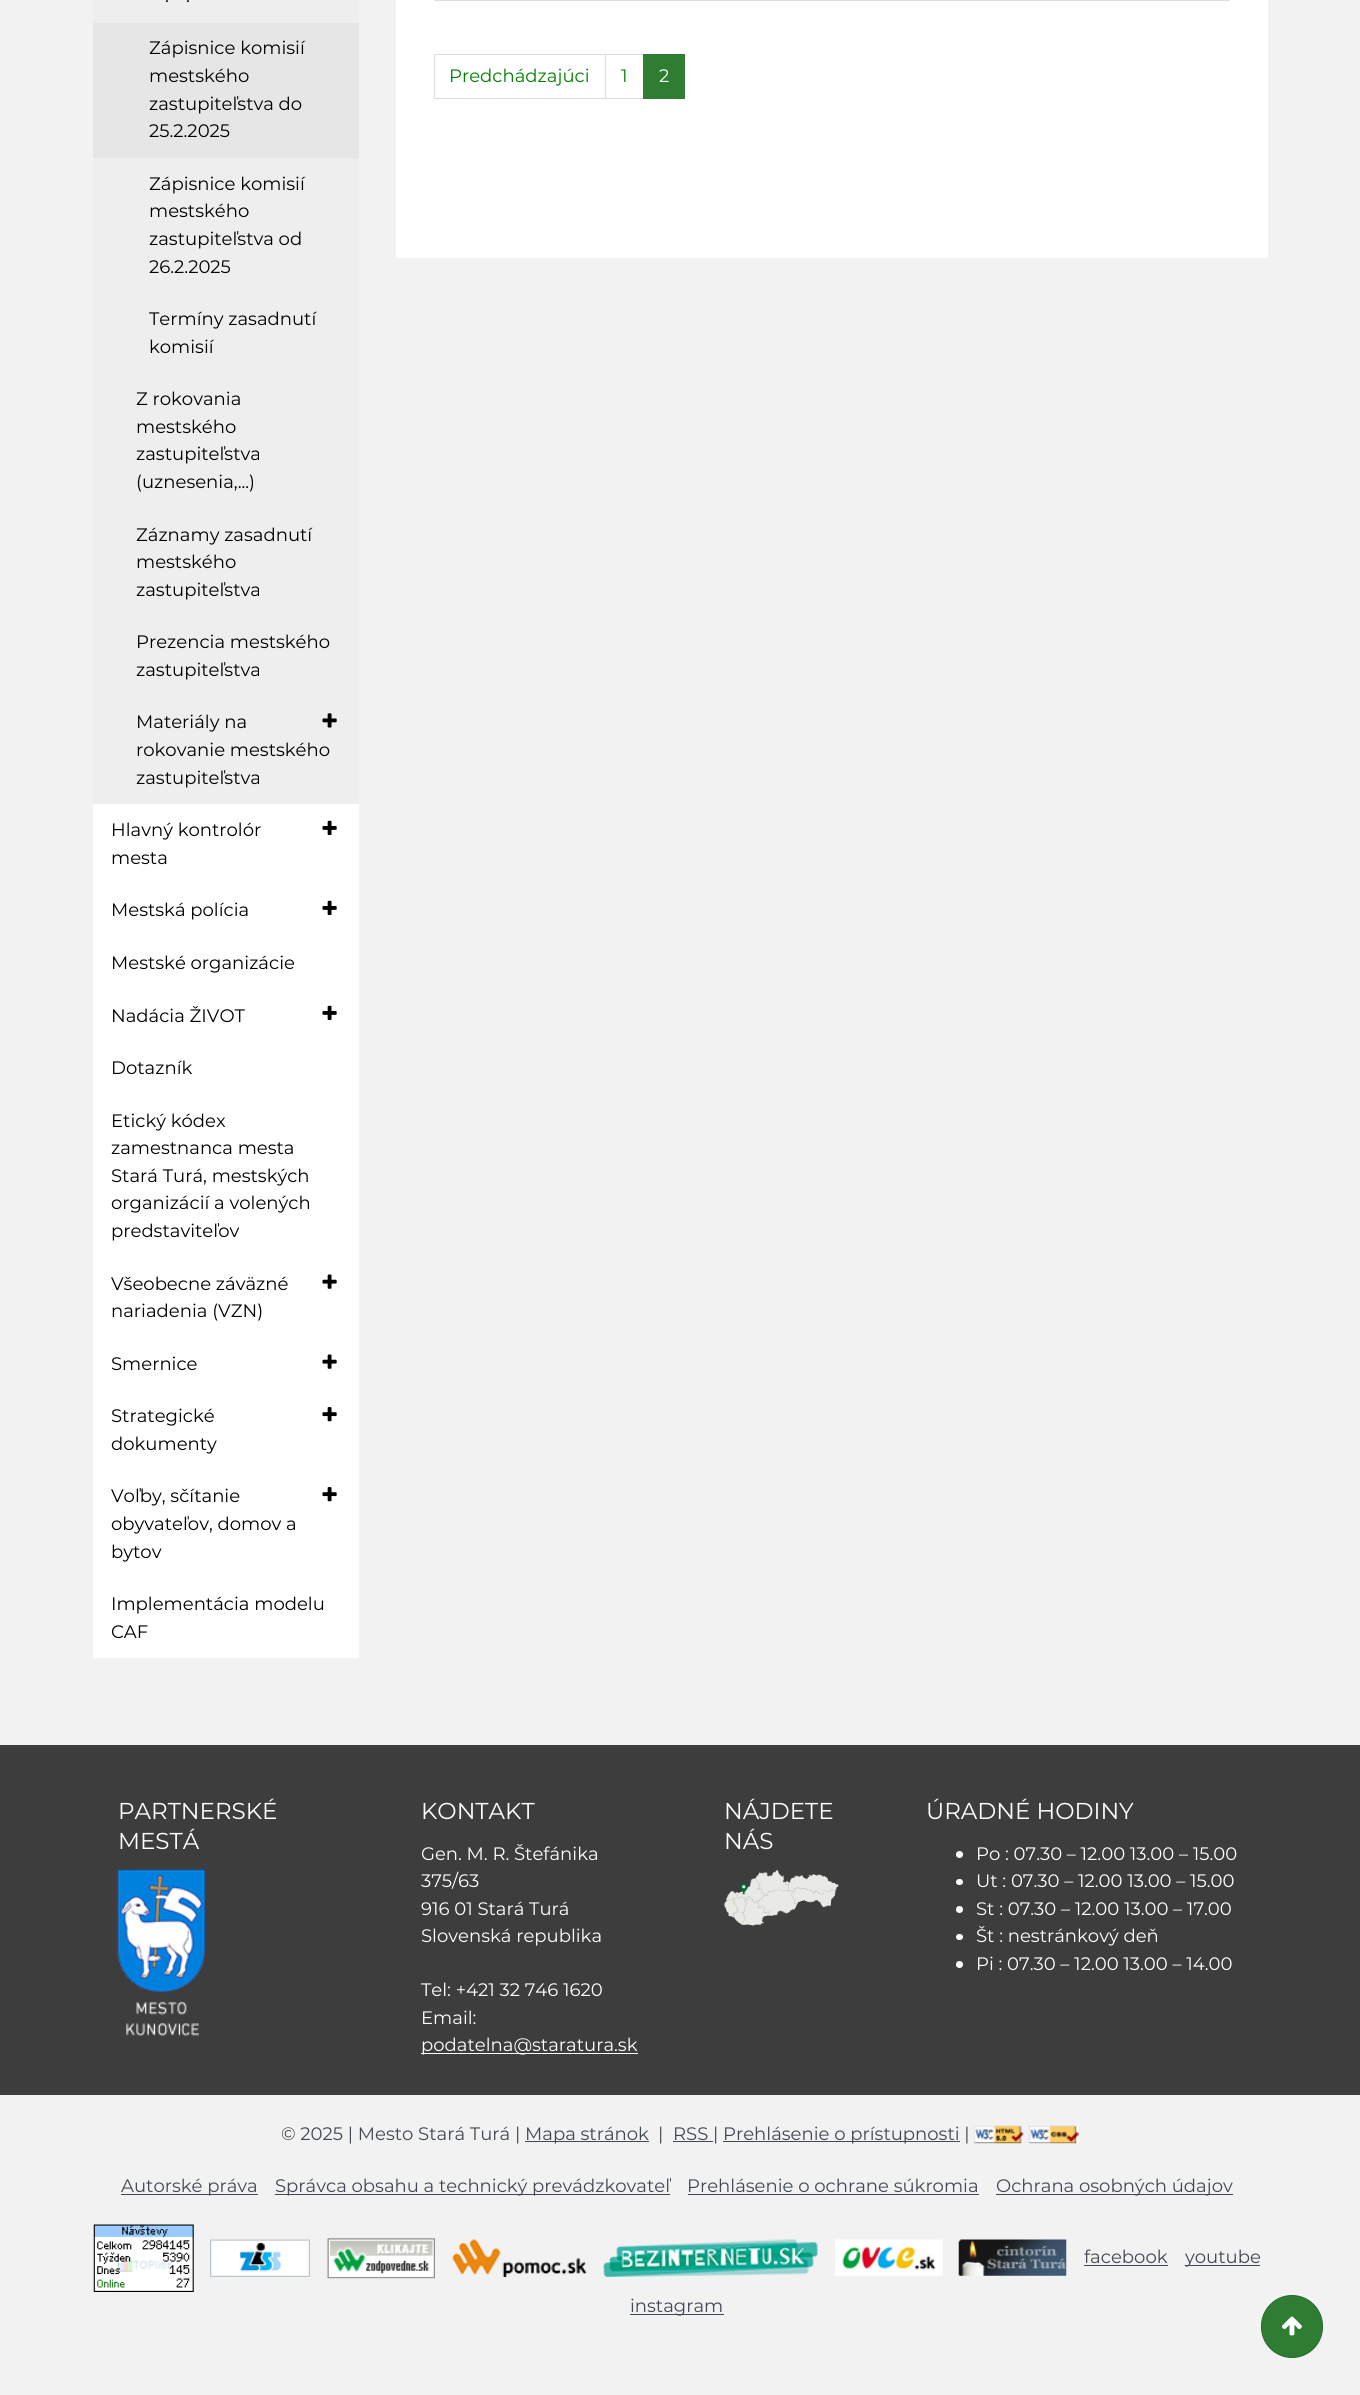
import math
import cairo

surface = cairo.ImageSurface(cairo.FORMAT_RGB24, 1360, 2395)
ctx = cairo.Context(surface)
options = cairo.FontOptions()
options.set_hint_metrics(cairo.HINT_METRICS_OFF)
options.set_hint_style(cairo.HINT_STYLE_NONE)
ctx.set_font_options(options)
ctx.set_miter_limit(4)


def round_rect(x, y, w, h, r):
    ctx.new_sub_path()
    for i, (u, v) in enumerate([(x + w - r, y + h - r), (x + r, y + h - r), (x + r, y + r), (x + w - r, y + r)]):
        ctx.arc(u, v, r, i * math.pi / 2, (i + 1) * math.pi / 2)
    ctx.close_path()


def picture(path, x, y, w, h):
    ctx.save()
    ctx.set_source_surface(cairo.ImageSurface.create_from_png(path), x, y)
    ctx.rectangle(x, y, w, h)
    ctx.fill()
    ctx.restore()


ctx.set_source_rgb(0.949, 0.949, 0.949)
ctx.paint()
ctx.set_source_rgb(0.933, 0.933, 0.933)
ctx.rectangle(93, 0, 266, 23)
ctx.fill()
ctx.select_font_face("Montserrat")
ctx.set_font_size(18.05)
ctx.set_source_rgb(0, 0, 0)
ctx.move_to(165, 2)
ctx.show_text(".")
ctx.move_to(186, 2)
ctx.show_text(".")
ctx.set_source_rgb(0.902, 0.902, 0.902)
ctx.rectangle(93, 23, 266, 135)
ctx.fill()
ctx.set_source_rgb(0, 0, 0)
ctx.move_to(149, 54)
ctx.show_text("Zápisnice komisií")
ctx.move_to(149, 82)
ctx.show_text("mestského")
ctx.move_to(149, 110)
ctx.show_text("zastupiteľstva do")
ctx.move_to(149, 137)
ctx.show_text("25.2.2025")
ctx.set_source_rgb(0.933, 0.933, 0.933)
ctx.rectangle(93, 158, 266, 646)
ctx.fill()
ctx.set_source_rgb(0, 0, 0)
ctx.move_to(149, 190)
ctx.show_text("Zápisnice komisií")
ctx.move_to(149, 217)
ctx.show_text("mestského")
ctx.move_to(149, 245)
ctx.show_text("zastupiteľstva od")
ctx.move_to(149, 273)
ctx.show_text("26.2.2025")
ctx.move_to(149, 325)
ctx.show_text("Termíny zasadnutí")
ctx.move_to(149, 353)
ctx.show_text("komisií")
ctx.move_to(136, 405)
ctx.show_text("Z rokovania")
ctx.move_to(136, 433)
ctx.show_text("mestského")
ctx.move_to(136, 460)
ctx.show_text("zastupiteľstva")
ctx.move_to(136, 488)
ctx.show_text("(uznesenia,...)")
ctx.move_to(136, 541)
ctx.show_text("Záznamy zasadnutí")
ctx.move_to(136, 568)
ctx.show_text("mestského")
ctx.move_to(136, 596)
ctx.show_text("zastupiteľstva")
ctx.move_to(136, 648)
ctx.show_text("Prezencia mestského")
ctx.move_to(136, 676)
ctx.show_text("zastupiteľstva")
ctx.move_to(136, 728)
ctx.show_text("Materiály na")
picture("img1.png", 322, 713, 15, 15)
ctx.move_to(136, 756)
ctx.show_text("rokovanie mestského")
ctx.move_to(136, 784)
ctx.show_text("zastupiteľstva")
ctx.set_source_rgb(1, 1, 1)
ctx.rectangle(93, 804, 266, 854)
ctx.fill()
ctx.set_source_rgb(0, 0, 0)
ctx.move_to(111, 836)
ctx.show_text("Hlavný kontrolór")
picture("img2.png", 322, 820, 15, 15)
ctx.move_to(111, 864)
ctx.show_text("mesta")
ctx.move_to(111, 916)
ctx.show_text("Mestská polícia")
picture("img2.png", 322, 900, 15, 15)
ctx.move_to(111, 969)
ctx.show_text("Mestské organizácie")
ctx.move_to(111, 1022)
ctx.show_text("Nadácia ŽIVOT")
picture("img2.png", 322, 1005, 15, 15)
ctx.move_to(111, 1074)
ctx.show_text("Dotazník")
ctx.move_to(111, 1127)
ctx.show_text("Etický kódex")
ctx.move_to(111, 1154)
ctx.show_text("zamestnanca mesta")
ctx.move_to(111, 1182)
ctx.show_text("Stará Turá, mestských")
ctx.move_to(111, 1209)
ctx.show_text("organizácií a volených")
ctx.move_to(111, 1237)
ctx.show_text("predstaviteľov")
ctx.move_to(111, 1290)
ctx.show_text("Všeobecne záväzné")
picture("img3.png", 322, 1274, 15, 15)
ctx.move_to(111, 1317)
ctx.show_text("nariadenia (VZN)")
ctx.move_to(111, 1370)
ctx.show_text("Smernice")
picture("img3.png", 322, 1354, 15, 15)
ctx.move_to(111, 1422)
ctx.show_text("Strategické")
picture("img4.png", 322, 1407, 15, 15)
ctx.move_to(111, 1450)
ctx.show_text("dokumenty")
ctx.move_to(111, 1502)
ctx.show_text("Voľby, sčítanie")
picture("img4.png", 322, 1487, 15, 15)
ctx.move_to(111, 1530)
ctx.show_text("obyvateľov, domov a")
ctx.move_to(111, 1558)
ctx.show_text("bytov")
ctx.move_to(111, 1610)
ctx.show_text("Implementácia modelu")
ctx.move_to(111, 1638)
ctx.show_text("CAF")
ctx.set_source_rgb(1, 1, 1)
ctx.rectangle(396, 0, 872, 258)
ctx.fill()
ctx.set_source_rgb(0.867, 0.867, 0.867)
ctx.rectangle(434, 0, 796, 1)
ctx.fill()
ctx.rectangle(434.5, 54.5, 171, 44)
ctx.set_line_width(1)
ctx.stroke()
ctx.set_source_rgb(0, 0.502, 0)
ctx.move_to(449, 82)
ctx.show_text("Predchádzajúci")
ctx.rectangle(605.5, 54.5, 38, 44)
ctx.set_source_rgb(0.867, 0.867, 0.867)
ctx.stroke()
ctx.set_source_rgb(0, 0.502, 0)
ctx.move_to(621, 82)
ctx.show_text("1")
ctx.set_source_rgb(0.18, 0.49, 0.196)
ctx.rectangle(643, 54, 42, 45)
ctx.fill()
ctx.set_source_rgb(1, 1, 1)
ctx.move_to(659, 82)
ctx.show_text("2")
ctx.set_source_rgb(0.239, 0.239, 0.239)
ctx.rectangle(0, 1745, 1360, 350)
ctx.fill()
ctx.set_font_size(23)
ctx.set_source_rgb(1, 1, 1)
ctx.move_to(118, 1819)
ctx.show_text("PARTNERSKÉ")
ctx.move_to(118, 1849)
ctx.show_text("MESTÁ")
picture("img5.png", 117, 1869, 88, 167)
ctx.move_to(421, 1819)
ctx.show_text("KONTAKT")
ctx.set_font_size(18.05)
ctx.move_to(421, 1860)
ctx.show_text("Gen. M. R. Štefánika")
ctx.move_to(421, 1887)
ctx.show_text("375/63")
ctx.move_to(421, 1915)
ctx.show_text("916 01 Stará Turá")
ctx.move_to(421, 1942)
ctx.show_text("Slovenská republika")
ctx.move_to(421, 1996)
ctx.show_text("Tel: +421 32 746 1620")
ctx.move_to(421, 2024)
ctx.show_text("Email:")
ctx.rectangle(421, 2053, 217, 1)
ctx.fill()
ctx.move_to(421, 2051)
ctx.show_text("podatelna@staratura.sk")
ctx.set_font_size(23)
ctx.move_to(724, 1819)
ctx.show_text("NÁJDETE")
ctx.move_to(724, 1849)
ctx.show_text("NÁS")
picture("img6.png", 723, 1869, 116, 57)
ctx.move_to(926, 1819)
ctx.show_text("ÚRADNÉ HODINY")
ctx.new_path()
ctx.arc(959.5, 1854.5, 3.5, 0, 2 * math.pi)
ctx.fill()
ctx.set_font_size(18.05)
ctx.move_to(976, 1860)
ctx.show_text("Po : 07.30 – 12.00 13.00 – 15.00")
round_rect(956, 1879, 7, 6, 3)
ctx.fill()
ctx.move_to(976, 1887)
ctx.show_text("Ut : 07.30 – 12.00 13.00 – 15.00")
ctx.new_path()
ctx.arc(959.5, 1909.5, 3.5, 0, 2 * math.pi)
ctx.fill()
ctx.move_to(976, 1915)
ctx.show_text("St : 07.30 – 12.00 13.00 – 17.00")
round_rect(956, 1934, 7, 6, 3)
ctx.fill()
ctx.move_to(976, 1942)
ctx.show_text("Št : nestránkový deň")
ctx.new_path()
ctx.arc(959.5, 1964.5, 3.5, 0, 2 * math.pi)
ctx.fill()
ctx.move_to(976, 1970)
ctx.show_text("Pi : 07.30 – 12.00 13.00 – 14.00")
ctx.set_source_rgb(0.259, 0.286, 0.322)
ctx.move_to(281, 2140)
ctx.show_text("© 2025 | Mesto Stará Turá |")
ctx.rectangle(525, 2141, 124, 1)
ctx.fill()
ctx.move_to(525, 2140)
ctx.show_text("Mapa stránok")
ctx.move_to(658, 2140)
ctx.show_text("|")
ctx.rectangle(673, 2141, 40, 1)
ctx.fill()
ctx.move_to(673, 2140)
ctx.show_text("RSS |")
ctx.rectangle(723, 2141, 237, 1)
ctx.fill()
ctx.move_to(723, 2140)
ctx.show_text("Prehlásenie o prístupnosti |")
picture("img7.png", 973, 2125, 51, 19)
picture("img8.png", 1028, 2125, 51, 19)
ctx.rectangle(121, 2194, 137, 1)
ctx.fill()
ctx.move_to(121, 2192)
ctx.show_text("Autorské práva")
ctx.rectangle(275, 2194, 395, 1)
ctx.fill()
ctx.move_to(275, 2192)
ctx.show_text("Správca obsahu a technický prevádzkovateľ")
ctx.move_to(687, 2192)
ctx.show_text("Prehlásenie o ochrane súkromia")
ctx.rectangle(688, 2194, 291, 1)
ctx.fill()
ctx.rectangle(996, 2194, 237, 1)
ctx.fill()
ctx.move_to(996, 2192)
ctx.show_text("Ochrana osobných údajov")
picture("img9.png", 93, 2224, 101, 68)
picture("img10.png", 210, 2239, 100, 38)
picture("img11.png", 327, 2238, 108, 41)
picture("img12.png", 452, 2239, 135, 38)
picture("img13.png", 603, 2239, 215, 38)
picture("img14.png", 835, 2239, 108, 37)
picture("img15.png", 958, 2239, 109, 37)
ctx.move_to(1084, 2263)
ctx.show_text("facebook")
ctx.rectangle(1084, 2265, 84, 1)
ctx.fill()
ctx.rectangle(1185, 2265, 75, 1)
ctx.fill()
ctx.move_to(1185, 2263)
ctx.show_text("youtube")
ctx.rectangle(630, 2314, 94, 1)
ctx.fill()
ctx.move_to(630, 2312)
ctx.show_text("instagram")
ctx.set_source_rgb(0.18, 0.49, 0.196)
round_rect(1261.5, 2295.5, 61, 62, 30.5)
ctx.fill_preserve()
ctx.set_source_rgb(0.153, 0.416, 0.169)
ctx.stroke()
picture("img16.png", 1281, 2316, 21, 20)
surface.write_to_png("page.png")
